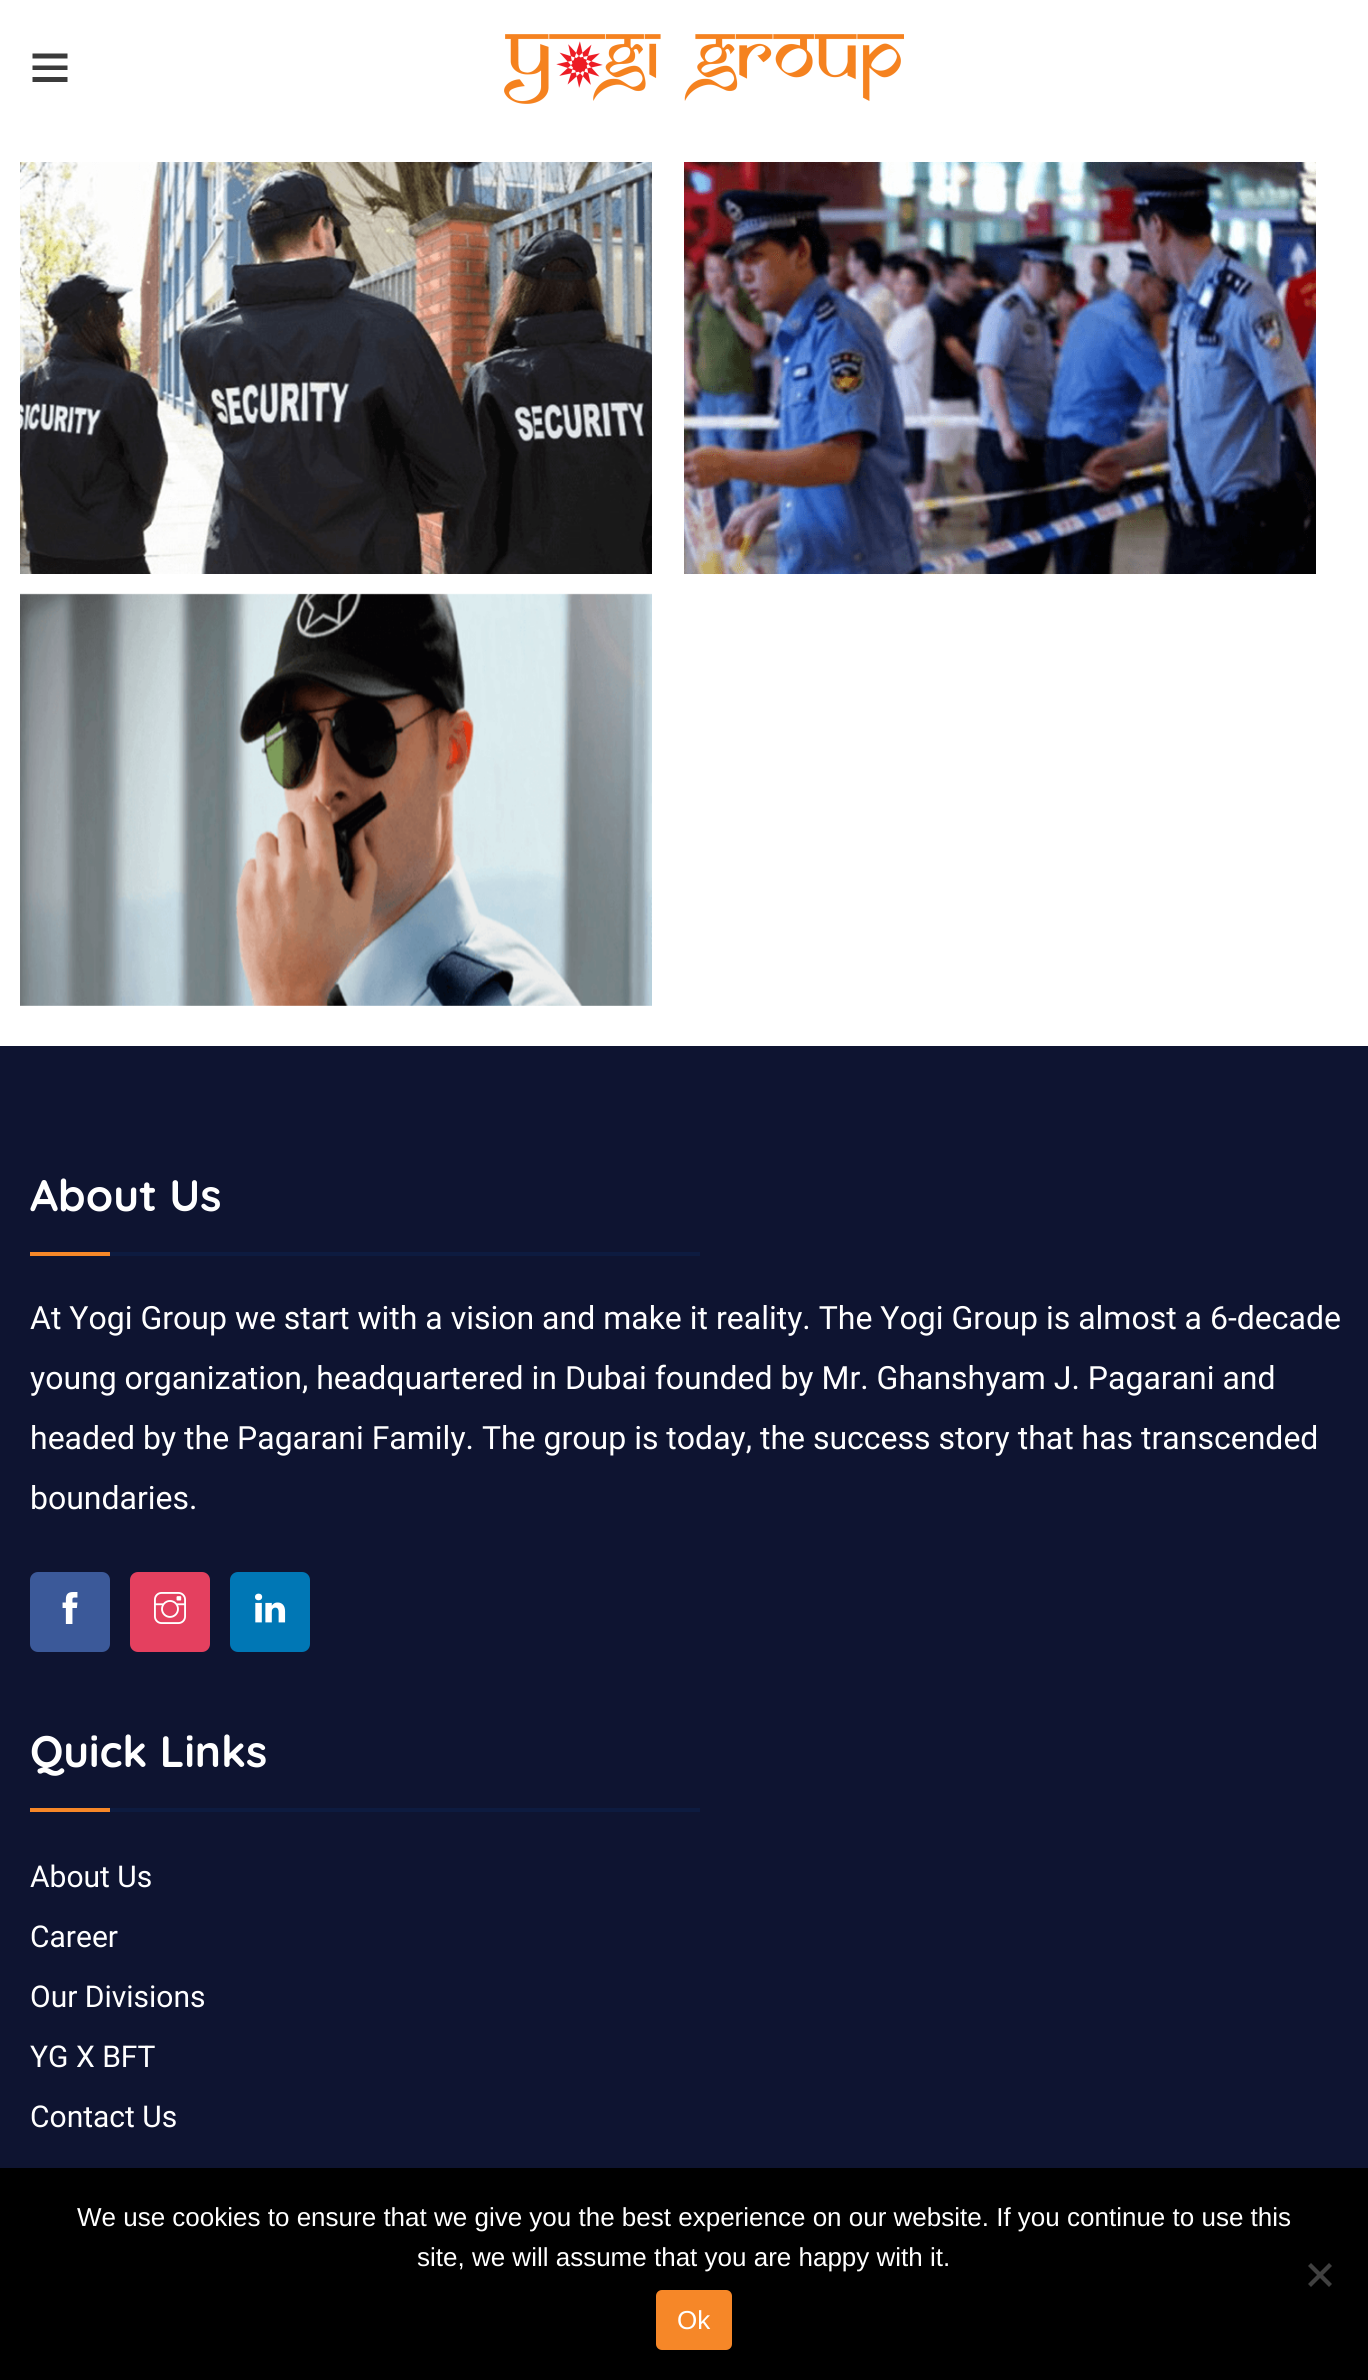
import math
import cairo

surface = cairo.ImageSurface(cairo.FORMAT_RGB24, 1368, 2380)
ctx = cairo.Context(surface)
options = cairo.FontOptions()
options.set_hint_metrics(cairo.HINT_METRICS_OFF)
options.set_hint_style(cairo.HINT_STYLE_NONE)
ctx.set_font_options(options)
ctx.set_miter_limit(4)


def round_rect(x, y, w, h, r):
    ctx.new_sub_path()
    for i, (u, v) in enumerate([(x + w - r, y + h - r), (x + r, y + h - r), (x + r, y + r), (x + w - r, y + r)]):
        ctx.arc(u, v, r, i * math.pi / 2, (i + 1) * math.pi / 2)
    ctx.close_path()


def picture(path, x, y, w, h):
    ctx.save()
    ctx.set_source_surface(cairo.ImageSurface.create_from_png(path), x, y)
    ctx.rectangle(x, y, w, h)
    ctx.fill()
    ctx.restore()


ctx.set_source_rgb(1, 1, 1)
ctx.paint()
ctx.set_source_rgb(0.231, 0.231, 0.231)
ctx.new_path()
ctx.move_to(67.5, 53.5)
ctx.line_to(67.5, 58.5)
ctx.line_to(32.5, 58.5)
ctx.line_to(32.5, 53.5)
ctx.close_path()
ctx.move_to(32.5, 70)
ctx.line_to(67.5, 70)
ctx.line_to(67.5, 65.5)
ctx.line_to(32.5, 65.5)
ctx.close_path()
ctx.move_to(32.5, 82)
ctx.line_to(67.5, 82)
ctx.line_to(67.5, 77)
ctx.line_to(32.5, 77)
ctx.close_path()
ctx.fill()
picture("img1.png", 504, 34, 400, 70)
picture("img2.png", 20, 162, 632, 412)
picture("img3.png", 684, 162, 632, 412)
picture("img4.png", 20, 593, 632, 413)
ctx.set_source_rgb(0.055, 0.082, 0.192)
ctx.rectangle(0, 1046, 1368, 1122)
ctx.fill()
ctx.select_font_face("Quicksand Light")
ctx.set_font_size(44)
ctx.set_source_rgb(1, 1, 1)
ctx.move_to(30, 1211)
ctx.show_text("About Us")
ctx.set_source_rgb(0.961, 0.529, 0.157)
ctx.rectangle(30, 1252, 80, 4)
ctx.fill()
ctx.set_source_rgb(0.051, 0.106, 0.251)
ctx.rectangle(110, 1252, 590, 4)
ctx.fill()
ctx.select_font_face("Roboto")
ctx.set_font_size(32)
ctx.set_source_rgb(1, 1, 1)
ctx.move_to(30, 1329)
ctx.show_text("At Yogi Group we start with a vision and make it reality. The Yogi Group is almost a 6-decade")
ctx.move_to(30, 1389)
ctx.show_text("young organization, headquartered in Dubai founded by Mr. Ghanshyam J. Pagarani and")
ctx.move_to(30, 1449)
ctx.show_text("headed by the Pagarani Family. The group is today, the success story that has transcended")
ctx.move_to(30, 1509)
ctx.show_text("boundaries.")
ctx.set_source_rgb(0.231, 0.349, 0.6)
round_rect(30, 1572, 80, 80, 8)
ctx.fill()
picture("img5.png", 62, 1592, 16, 32)
ctx.set_source_rgb(0.894, 0.251, 0.373)
round_rect(130, 1572, 80, 80, 8)
ctx.fill()
picture("img6.png", 154, 1592, 32, 32)
ctx.set_source_rgb(0, 0.467, 0.71)
round_rect(230, 1572, 80, 80, 8)
ctx.fill()
picture("img7.png", 255, 1593, 31, 30)
ctx.select_font_face("Quicksand Light")
ctx.set_font_size(44)
ctx.set_source_rgb(1, 1, 1)
ctx.move_to(30, 1767)
ctx.show_text("Quick Links")
ctx.set_source_rgb(0.961, 0.529, 0.157)
ctx.rectangle(30, 1808, 80, 4)
ctx.fill()
ctx.set_source_rgb(0.051, 0.106, 0.251)
ctx.rectangle(110, 1808, 590, 4)
ctx.fill()
ctx.select_font_face("Roboto")
ctx.set_font_size(30)
ctx.set_source_rgb(1, 1, 1)
ctx.move_to(30, 1887)
ctx.show_text("About Us")
ctx.move_to(30, 1947)
ctx.show_text("Career")
ctx.move_to(30, 2007)
ctx.show_text("Our Divisions")
ctx.move_to(30, 2067)
ctx.show_text("YG X BFT")
ctx.move_to(30, 2127)
ctx.show_text("Contact Us")
ctx.set_source_rgb(0, 0, 0)
ctx.rectangle(0, 2168, 1368, 212)
ctx.fill()
ctx.select_font_face("Liberation Sans")
ctx.set_font_size(26)
ctx.set_source_rgb(1, 1, 1)
ctx.move_to(77, 2226)
ctx.show_text("We use cookies to ensure that we give you the best experience on our website. If you continue to use this")
ctx.move_to(417, 2266)
ctx.show_text("site, we will assume that you are happy with it.")
ctx.set_source_rgb(0.251, 0.251, 0.251)
ctx.new_path()
ctx.move_to(1329, 2263)
ctx.line_to(1332, 2266)
ctx.line_to(1311, 2287)
ctx.line_to(1308, 2284)
ctx.close_path()
ctx.fill()
ctx.new_path()
ctx.move_to(1308, 2266)
ctx.line_to(1311, 2263)
ctx.line_to(1332, 2284)
ctx.line_to(1329, 2287)
ctx.close_path()
ctx.fill()
ctx.set_source_rgb(0.961, 0.529, 0.157)
round_rect(656, 2290, 76, 60, 6)
ctx.fill()
ctx.set_source_rgb(1, 1, 1)
ctx.move_to(677, 2329)
ctx.show_text("Ok")
surface.write_to_png("page.png")
